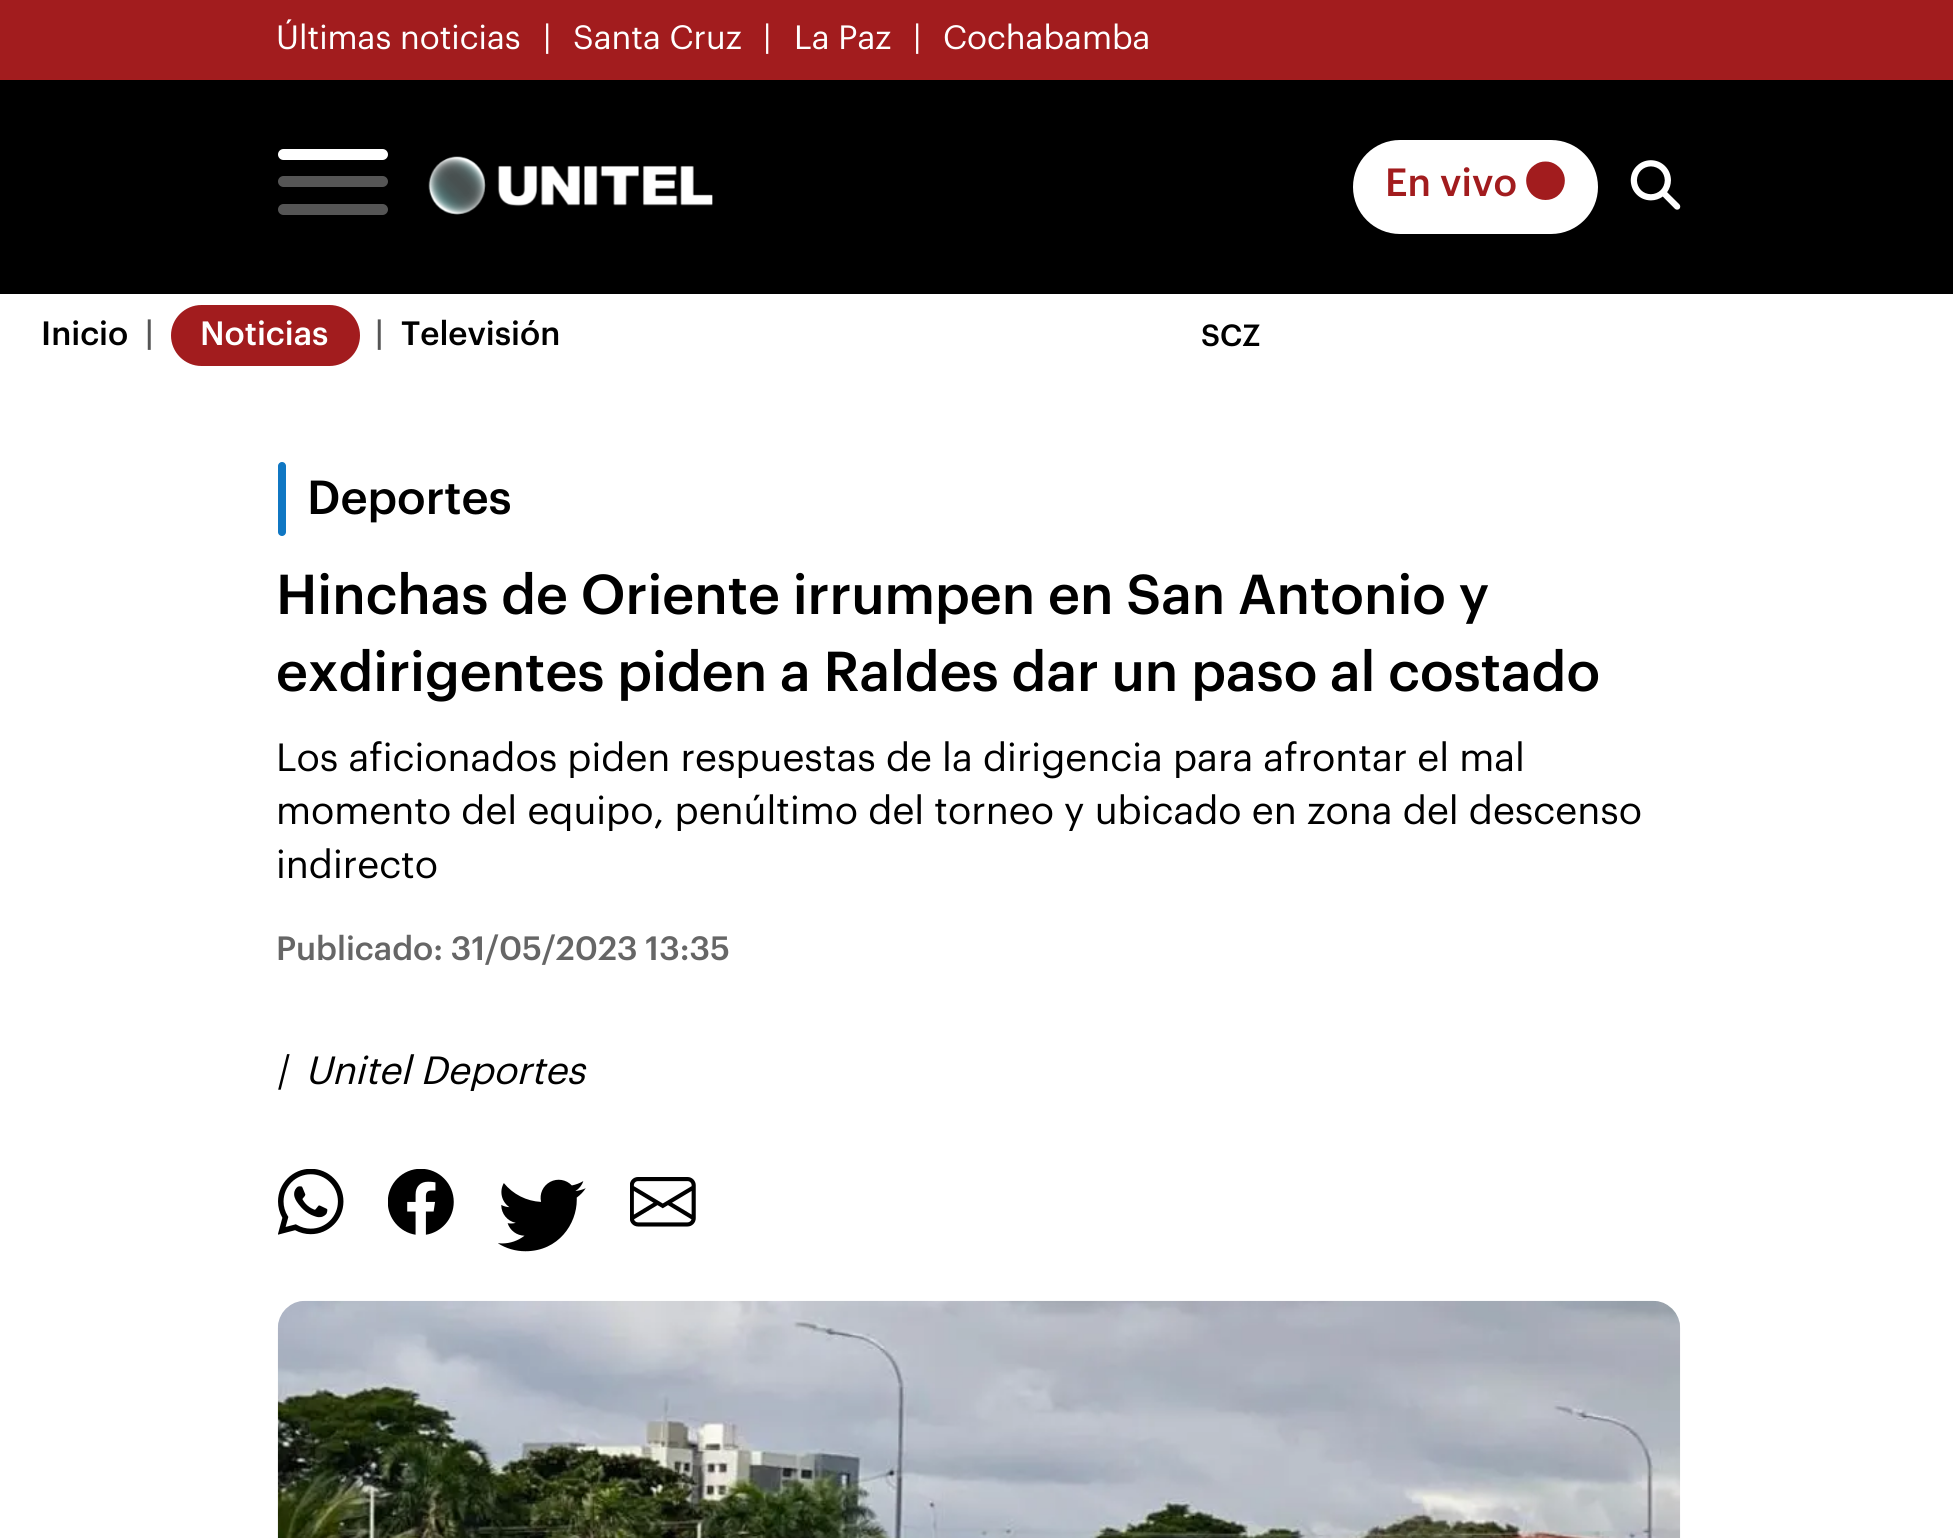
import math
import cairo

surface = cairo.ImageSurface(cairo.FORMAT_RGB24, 1953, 1538)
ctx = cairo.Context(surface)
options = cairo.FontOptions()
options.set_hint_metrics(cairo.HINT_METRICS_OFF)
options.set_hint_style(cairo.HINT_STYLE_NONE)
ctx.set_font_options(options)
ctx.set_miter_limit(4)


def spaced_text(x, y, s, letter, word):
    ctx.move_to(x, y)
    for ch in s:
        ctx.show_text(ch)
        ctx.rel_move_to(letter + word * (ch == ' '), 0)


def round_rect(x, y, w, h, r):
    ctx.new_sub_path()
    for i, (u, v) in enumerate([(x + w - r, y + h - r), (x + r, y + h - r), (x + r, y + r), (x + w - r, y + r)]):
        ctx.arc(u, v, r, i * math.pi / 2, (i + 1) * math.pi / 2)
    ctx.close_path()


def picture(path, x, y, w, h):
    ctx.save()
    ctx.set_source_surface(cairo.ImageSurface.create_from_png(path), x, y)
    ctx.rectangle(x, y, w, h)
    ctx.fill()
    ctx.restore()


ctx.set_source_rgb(1, 1, 1)
ctx.paint()
ctx.set_source_rgb(0.635, 0.11, 0.118)
ctx.rectangle(0, 0, 1953, 80)
ctx.fill()
ctx.select_font_face("Graphik")
ctx.set_font_size(33)
ctx.set_source_rgb(1, 1, 1)
ctx.move_to(276, 49)
ctx.show_text("Últimas noticias")
ctx.move_to(543, 49)
ctx.show_text("|")
ctx.move_to(573, 49)
ctx.show_text("Santa Cruz")
ctx.move_to(763, 49)
ctx.show_text("|")
ctx.move_to(794, 49)
ctx.show_text("La Paz")
ctx.move_to(913, 49)
ctx.show_text("|")
ctx.move_to(943, 49)
ctx.show_text("Cochabamba")
ctx.set_source_rgb(0, 0, 0)
ctx.rectangle(0, 80, 1953, 214)
ctx.fill()
ctx.set_source_rgb(1, 1, 1)
round_rect(278, 149, 110, 11, 5.5)
ctx.fill()
ctx.set_source_rgb(0.333, 0.333, 0.333)
round_rect(278, 176, 110, 11, 5.5)
ctx.fill()
round_rect(278, 204, 110, 11, 5.5)
ctx.fill()
picture("img1.png", 428, 156, 285, 59)
ctx.set_source_rgb(1, 1, 1)
round_rect(1353, 140, 245, 94, 47)
ctx.fill()
ctx.select_font_face("Graphik Medium")
ctx.set_font_size(38.5)
ctx.set_source_rgb(0.635, 0.11, 0.118)
ctx.move_to(1385, 196)
ctx.show_text("En vivo")
ctx.new_path()
ctx.move_to(1545.5, 200)
ctx.curve_to(1564.5, 200, 1572, 175.5, 1556.5, 165)
ctx.curve_to(1553, 162.5, 1549.5, 161.5, 1545.5, 161.5)
ctx.curve_to(1541.5, 161.5, 1538, 162.5, 1534.5, 165)
ctx.curve_to(1519, 175.5, 1526.5, 200, 1545.5, 200)
ctx.close_path()
ctx.fill()
picture("img2.png", 1630, 160, 51, 50)
ctx.set_font_size(33)
ctx.set_source_rgb(0, 0, 0)
ctx.move_to(41, 345)
ctx.show_text("Inicio")
ctx.set_source_rgb(0.333, 0.333, 0.333)
ctx.move_to(145, 345)
ctx.show_text("|")
ctx.set_source_rgb(0.635, 0.11, 0.118)
round_rect(172.5, 306.5, 186, 58, 29)
ctx.fill_preserve()
ctx.set_line_width(3)
ctx.stroke()
ctx.set_source_rgb(1, 1, 1)
ctx.move_to(200, 345)
ctx.show_text("Noticias")
ctx.set_source_rgb(0.333, 0.333, 0.333)
ctx.move_to(375, 345)
ctx.show_text("|")
ctx.set_source_rgb(0, 0, 0)
ctx.move_to(401, 345)
ctx.show_text("Televisión")
ctx.set_font_size(30)
ctx.move_to(1201, 346)
ctx.show_text("SCZ")
ctx.set_source_rgb(0.063, 0.467, 0.765)
round_rect(278, 462, 8, 74, 4)
ctx.fill()
ctx.set_font_size(46.75)
ctx.set_source_rgb(0, 0, 0)
ctx.move_to(307, 514)
ctx.show_text("Deportes")
ctx.set_font_size(55)
spaced_text(276, 614, "Hinchas de Oriente irrumpen en San Antonio y", 0, -0.25)
spaced_text(276, 691, "exdirigentes piden a Raldes dar un paso al costado", 0, -0.25)
ctx.select_font_face("Graphik")
ctx.set_font_size(38.5)
ctx.move_to(276, 771)
ctx.show_text("Los aficionados piden respuestas de la dirigencia para afrontar el mal")
ctx.move_to(276, 824)
ctx.show_text("momento del equipo, penúltimo del torneo y ubicado en zona del descenso")
ctx.move_to(276, 878)
ctx.show_text("indirecto")
ctx.select_font_face("Graphik Medium")
ctx.set_font_size(33)
ctx.set_source_rgb(0.4, 0.4, 0.4)
ctx.move_to(276, 960)
ctx.show_text("Publicado: 31/05/2023 13:35")
ctx.select_font_face("Graphik", cairo.FONT_SLANT_ITALIC)
ctx.set_font_size(38.5)
ctx.set_source_rgb(0, 0, 0)
ctx.move_to(276, 1084)
ctx.show_text("|")
ctx.move_to(305, 1084)
ctx.show_text("Unitel Deportes")
picture("img3.png", 278, 1169, 66, 66)
picture("img4.png", 388, 1169, 66, 66)
picture("img5.png", 498, 1179, 88, 73)
picture("img6.png", 630, 1177, 66, 50)
picture("img7.png", 277, 1300, 1404, 238)
surface.write_to_png("page.png")
